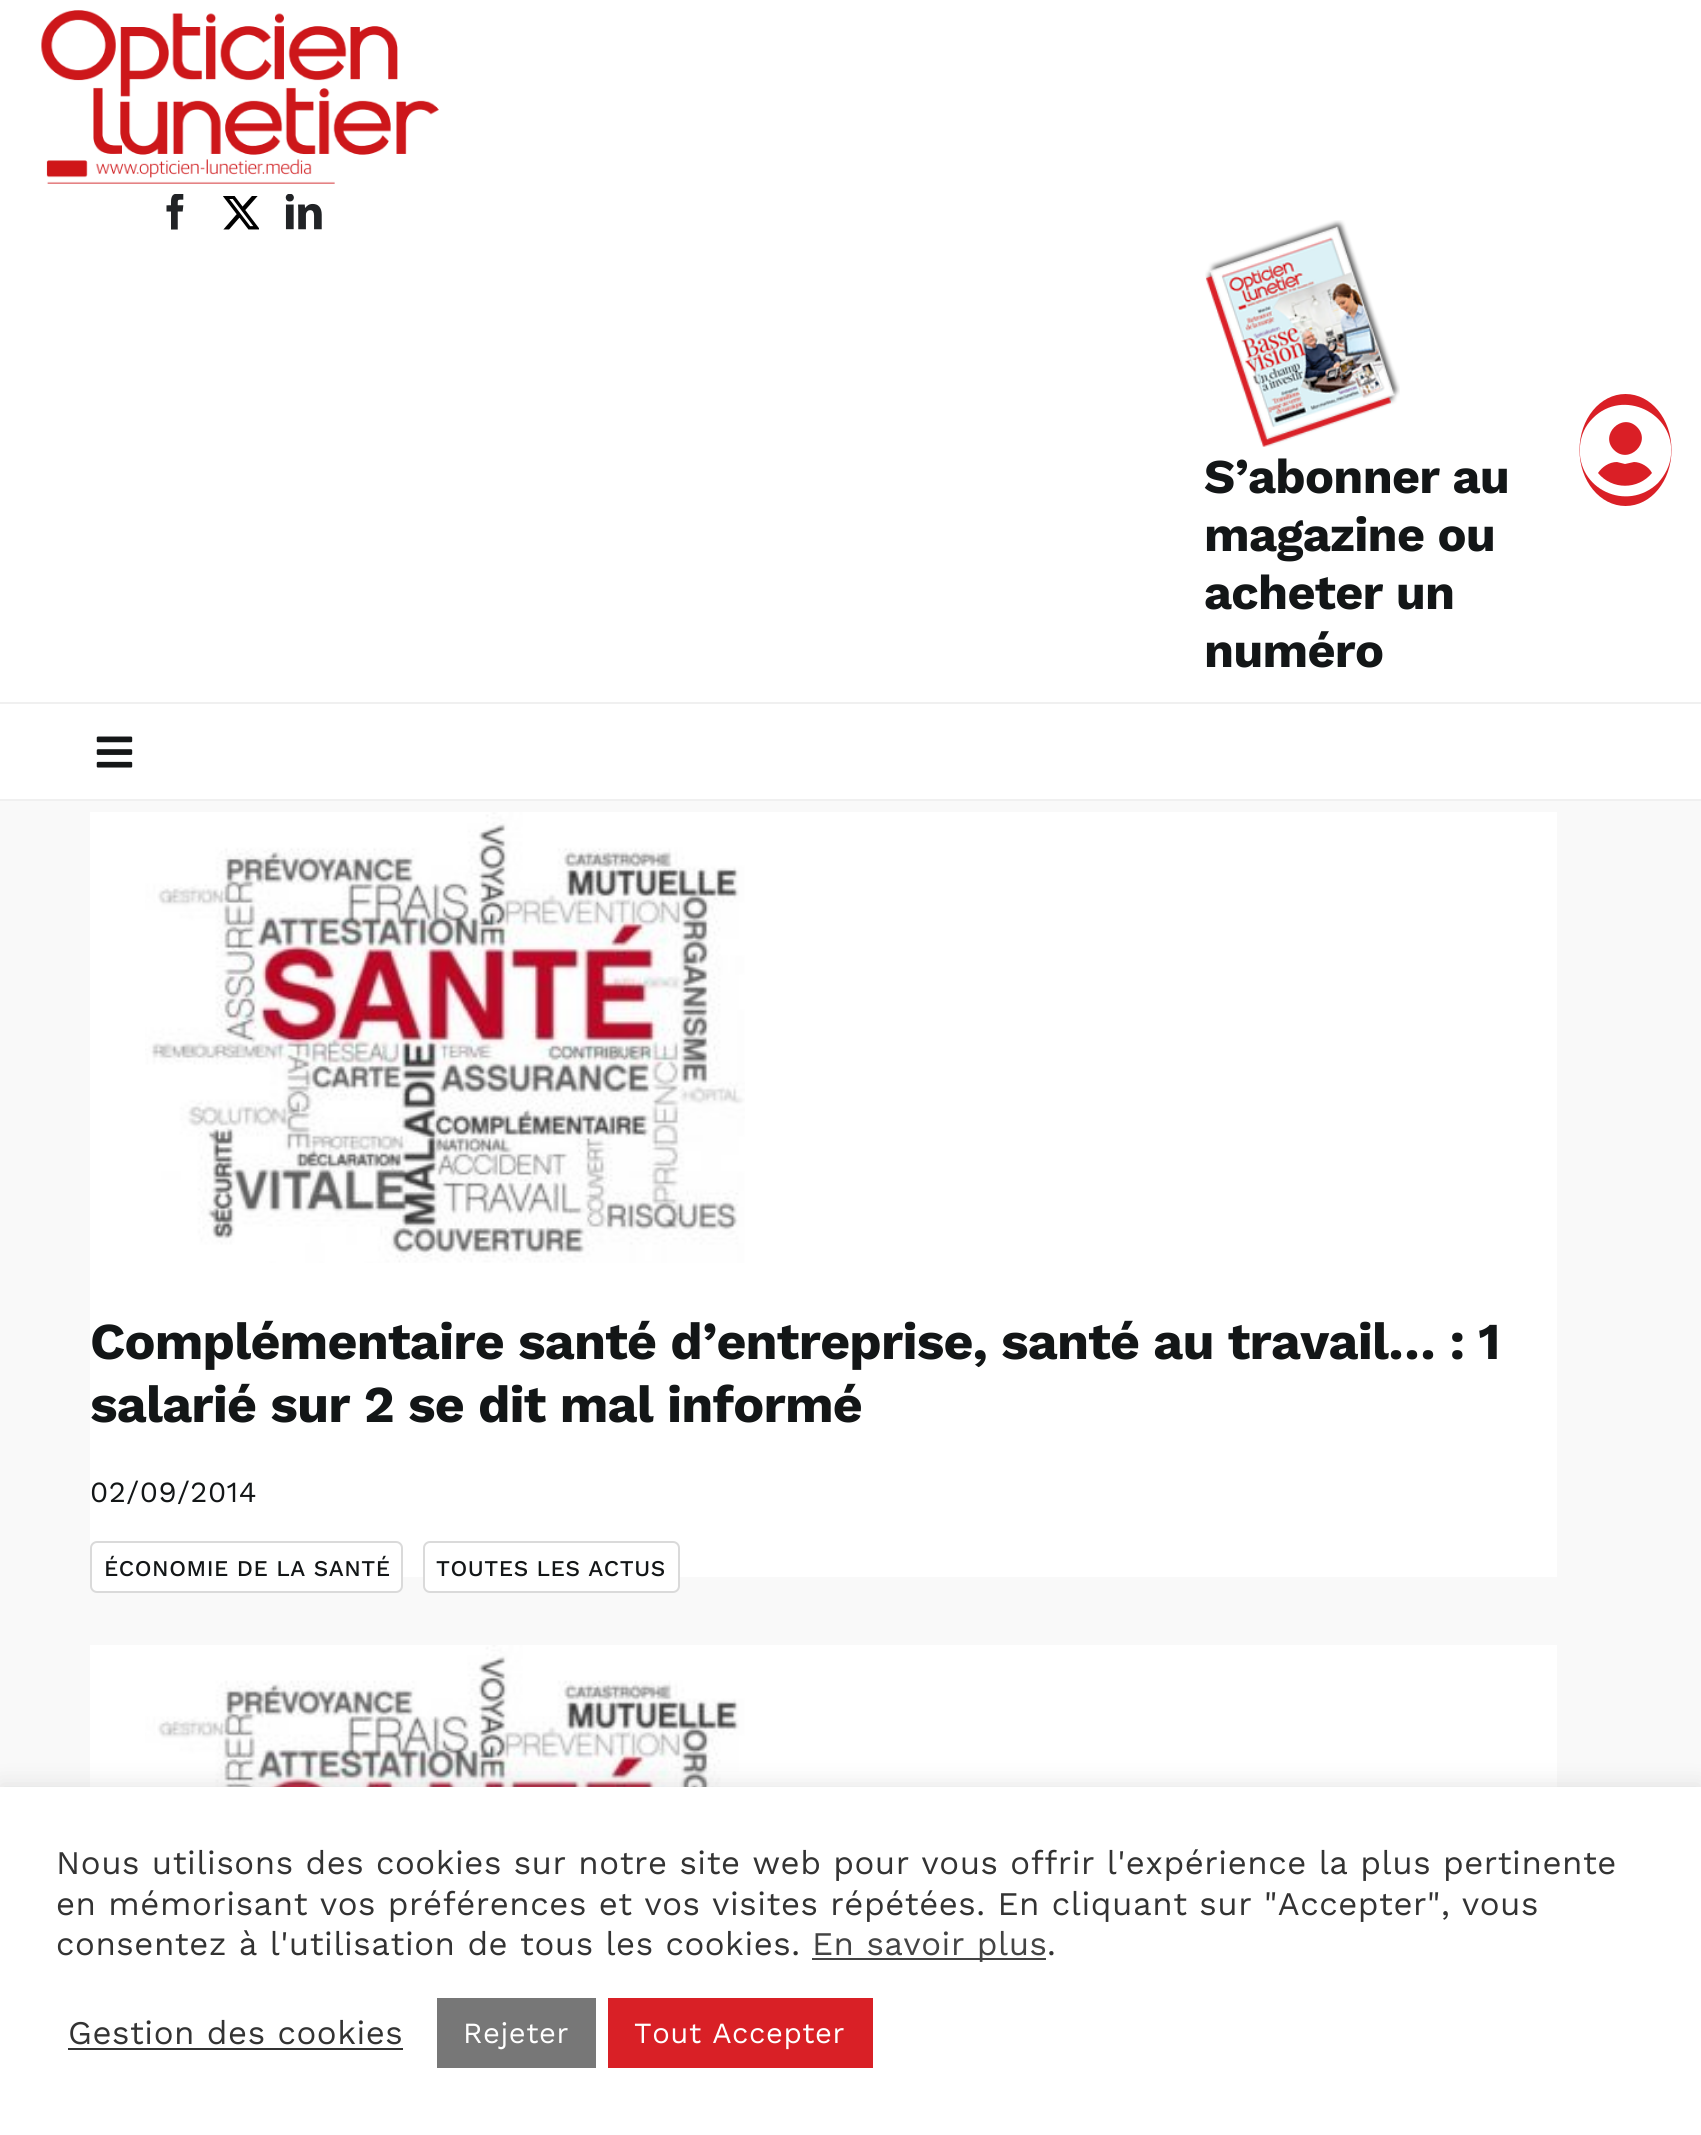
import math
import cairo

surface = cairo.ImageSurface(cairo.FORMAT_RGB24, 1701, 2135)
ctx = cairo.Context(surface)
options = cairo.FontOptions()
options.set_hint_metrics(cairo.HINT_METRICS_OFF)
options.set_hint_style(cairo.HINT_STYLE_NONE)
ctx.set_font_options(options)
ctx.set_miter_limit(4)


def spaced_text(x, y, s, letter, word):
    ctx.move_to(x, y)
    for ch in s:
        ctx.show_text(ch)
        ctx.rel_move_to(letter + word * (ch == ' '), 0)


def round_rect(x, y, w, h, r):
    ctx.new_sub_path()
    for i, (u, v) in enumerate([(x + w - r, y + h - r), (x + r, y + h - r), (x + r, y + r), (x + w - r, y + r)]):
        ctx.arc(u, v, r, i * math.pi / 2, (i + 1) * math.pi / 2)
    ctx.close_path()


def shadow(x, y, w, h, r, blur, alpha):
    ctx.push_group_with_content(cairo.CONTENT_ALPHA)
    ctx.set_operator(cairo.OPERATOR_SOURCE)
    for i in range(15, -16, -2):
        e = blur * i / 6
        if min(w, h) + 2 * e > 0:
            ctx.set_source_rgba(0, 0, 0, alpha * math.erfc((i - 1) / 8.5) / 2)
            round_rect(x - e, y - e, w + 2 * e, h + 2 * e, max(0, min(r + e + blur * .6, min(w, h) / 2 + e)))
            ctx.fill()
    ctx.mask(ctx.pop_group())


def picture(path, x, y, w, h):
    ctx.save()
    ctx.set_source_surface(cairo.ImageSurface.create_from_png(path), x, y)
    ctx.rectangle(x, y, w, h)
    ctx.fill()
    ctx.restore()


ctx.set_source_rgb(0.973, 0.973, 0.973)
ctx.paint()
ctx.set_source_rgb(1, 1, 1)
ctx.rectangle(0, 0, 1701, 702)
ctx.fill()
picture("img1.png", 41, 10, 398, 174)
picture("img2.png", 166, 194, 18, 36)
picture("img3.png", 223, 196, 36, 34)
picture("img4.png", 285, 194, 37, 36)
picture("img5.png", 1205, 220, 195, 227)
ctx.select_font_face("Work Sans", cairo.FONT_SLANT_NORMAL, cairo.FONT_WEIGHT_BOLD)
ctx.set_font_size(48.5)
ctx.set_source_rgb(0.078, 0.086, 0.09)
spaced_text(1204, 493, "S’abonner au", -0.75, 0)
spaced_text(1204, 551, "magazine ou", -0.75, 0)
spaced_text(1204, 609, "acheter un", -0.75, 0)
spaced_text(1204, 667, "numéro", -0.75, 0)
ctx.set_source_rgb(0.855, 0.122, 0.149)
ctx.new_path()
ctx.move_to(1625.5, 394)
ctx.curve_to(1651, 394, 1671.5, 419, 1671.5, 450)
ctx.curve_to(1671.5, 481, 1651, 506, 1625.5, 506)
ctx.curve_to(1600, 506, 1579.5, 481, 1579.5, 450)
ctx.curve_to(1579.5, 419, 1600, 394, 1625.5, 394)
ctx.close_path()
ctx.fill()
ctx.set_source_rgb(1, 1, 1)
ctx.new_path()
ctx.move_to(1593, 418)
ctx.curve_to(1623, 388, 1675, 413, 1671, 455)
ctx.curve_to(1670, 466, 1665, 475, 1658, 483)
ctx.curve_to(1627, 513, 1576, 489, 1580, 446)
ctx.curve_to(1581, 435, 1585, 426, 1593, 418)
ctx.close_path()
ctx.move_to(1637, 427)
ctx.curve_to(1622, 412, 1599, 435, 1614, 450)
ctx.curve_to(1629, 465, 1652, 442, 1637, 427)
ctx.close_path()
ctx.move_to(1598, 473)
ctx.curve_to(1612, 490, 1638, 490, 1652, 473)
ctx.curve_to(1649, 467, 1641, 462, 1634, 462)
ctx.line_to(1625, 464)
ctx.line_to(1617, 462)
ctx.curve_to(1609, 462, 1602, 467, 1598, 473)
ctx.close_path()
ctx.fill()
ctx.rectangle(0, 704, 1701, 95)
ctx.fill()
ctx.set_source_rgb(0.941, 0.941, 0.941)
ctx.rectangle(0, 702, 1701, 2)
ctx.fill()
ctx.rectangle(0, 799, 1701, 2)
ctx.fill()
picture("img6.png", 96, 736, 37, 32)
ctx.set_source_rgb(1, 1, 1)
ctx.rectangle(90, 812, 1467, 765)
ctx.fill()
picture("img7.png", 145, 812, 600, 451)
ctx.set_font_size(51.75)
ctx.set_source_rgb(0.078, 0.086, 0.09)
spaced_text(90, 1359, "Complémentaire santé d’entreprise, santé au travail… : 1", -0.78, 0)
spaced_text(90, 1422, "salarié sur 2 se dit mal informé", -0.78, 0)
ctx.select_font_face("Work Sans")
ctx.set_font_size(29.25)
spaced_text(90, 1502, "02/09/2014", 0.55, 0)
ctx.set_source_rgb(1, 1, 1)
round_rect(91, 1542, 311, 50, 6)
ctx.fill_preserve()
ctx.set_source_rgb(0.855, 0.855, 0.855)
ctx.stroke()
ctx.select_font_face("Work Sans Medium")
ctx.set_font_size(22.5)
ctx.set_source_rgb(0.078, 0.086, 0.09)
spaced_text(104, 1576, "ÉCONOMIE DE LA SANTÉ", 0.55, 0)
ctx.set_source_rgb(1, 1, 1)
round_rect(424, 1542, 255, 50, 6)
ctx.fill_preserve()
ctx.set_source_rgb(0.855, 0.855, 0.855)
ctx.stroke()
ctx.set_source_rgb(0.078, 0.086, 0.09)
spaced_text(436, 1576, "TOUTES LES ACTUS", 0.55, 0)
ctx.set_source_rgb(1, 1, 1)
ctx.rectangle(90, 1645, 1467, 142)
ctx.fill()
picture("img8.png", 145, 1645, 600, 142)
ctx.set_source_rgb(0.675, 0.671, 0.671)
shadow(0, 1784, 1701, 349, 0, 11, 0.3)
ctx.set_source_rgb(1, 1, 1)
ctx.rectangle(0, 1787, 1701, 348)
ctx.fill()
ctx.select_font_face("Work Sans")
ctx.set_font_size(33)
ctx.set_source_rgb(0.2, 0.2, 0.2)
spaced_text(56, 1874, "Nous utilisons des cookies sur notre site web pour vous offrir l'expérience la plus pertinente", 0.55, 0)
spaced_text(56, 1915, "en mémorisant vos préférences et vos visites répétées. En cliquant sur \"Accepter\", vous", 0.55, 0)
spaced_text(56, 1955, "consentez à l'utilisation de tous les cookies.", 0.55, 0)
ctx.set_source_rgb(0.267, 0.267, 0.267)
ctx.rectangle(812, 1958, 234, 2)
ctx.fill()
spaced_text(812, 1955, "En savoir plus", 0.55, 0)
ctx.set_source_rgb(0.2, 0.2, 0.2)
spaced_text(1047, 1955, ".", 0.55, 0)
spaced_text(68, 2044, "Gestion des cookies", 0.55, 0)
ctx.rectangle(68, 2048, 335, 2)
ctx.fill()
ctx.set_source_rgb(0.467, 0.467, 0.467)
ctx.rectangle(437, 1998, 159, 70)
ctx.fill()
ctx.set_font_size(29.25)
ctx.set_source_rgb(1, 1, 1)
spaced_text(463, 2043, "Rejeter", 0.55, 0)
ctx.set_source_rgb(0.851, 0.125, 0.149)
ctx.rectangle(608, 1998, 265, 70)
ctx.fill()
ctx.set_source_rgb(1, 1, 1)
spaced_text(634, 2043, "Tout Accepter", 0.55, 0)
surface.write_to_png("page.png")
